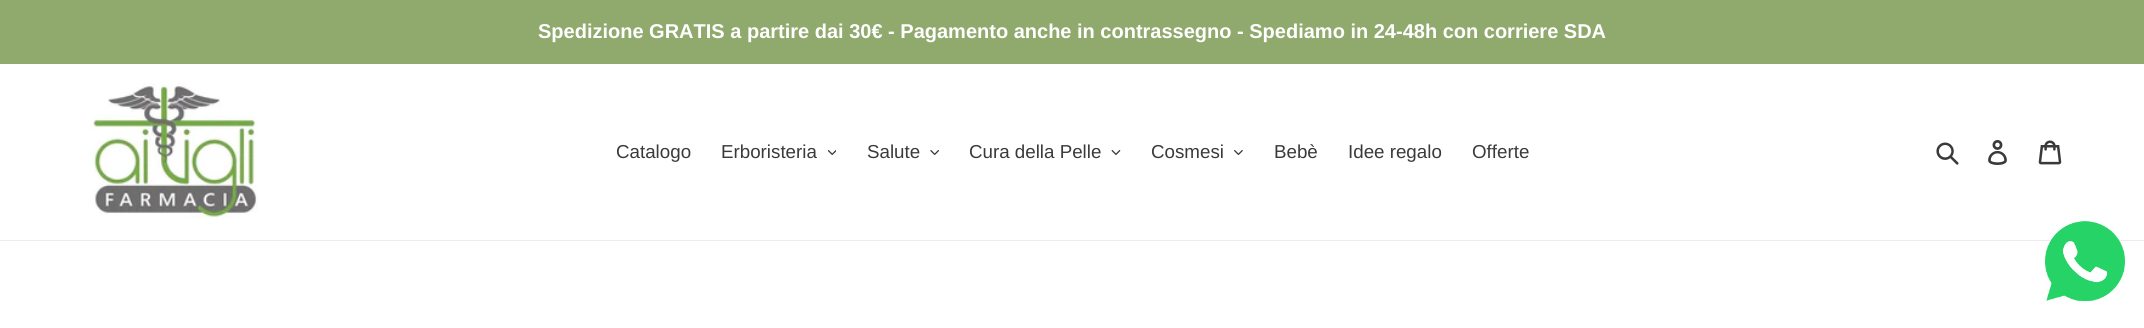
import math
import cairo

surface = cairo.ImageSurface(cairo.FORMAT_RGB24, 2144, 328)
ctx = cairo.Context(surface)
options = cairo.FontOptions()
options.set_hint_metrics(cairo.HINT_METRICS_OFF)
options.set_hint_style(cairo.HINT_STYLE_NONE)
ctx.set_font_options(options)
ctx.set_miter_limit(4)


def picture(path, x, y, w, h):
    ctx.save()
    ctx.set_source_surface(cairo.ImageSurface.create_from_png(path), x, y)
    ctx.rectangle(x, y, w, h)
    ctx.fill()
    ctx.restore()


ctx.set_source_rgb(1, 1, 1)
ctx.paint()
ctx.set_source_rgb(0.565, 0.663, 0.427)
ctx.rectangle(0, 0, 2144, 64)
ctx.fill()
ctx.select_font_face("Liberation Sans", cairo.FONT_SLANT_NORMAL, cairo.FONT_WEIGHT_BOLD)
ctx.set_font_size(20)
ctx.set_source_rgb(1, 1, 1)
ctx.move_to(538, 38)
ctx.show_text("Spedizione GRATIS a partire dai 30€ - Pagamento anche in contrassegno - Spediamo in 24-48h con corriere SDA")
ctx.set_source_rgb(0.922, 0.922, 0.922)
ctx.rectangle(0, 240, 2144, 1)
ctx.fill()
picture("img1.png", 89, 83, 169, 136)
ctx.select_font_face("Liberation Sans")
ctx.set_font_size(18.75)
ctx.set_source_rgb(0.227, 0.227, 0.227)
ctx.move_to(616, 158)
ctx.show_text("Catalogo")
ctx.move_to(721, 158)
ctx.show_text("Erboristeria")
picture("img2.png", 828, 150, 8, 5)
ctx.move_to(867, 158)
ctx.show_text("Salute")
picture("img3.png", 930, 150, 9, 5)
ctx.move_to(969, 158)
ctx.show_text("Cura della Pelle")
picture("img4.png", 1111, 150, 10, 5)
ctx.move_to(1151, 158)
ctx.show_text("Cosmesi")
picture("img5.png", 1234, 150, 9, 5)
ctx.move_to(1274, 158)
ctx.show_text("Bebè")
ctx.move_to(1348, 158)
ctx.show_text("Idee regalo")
ctx.move_to(1472, 158)
ctx.show_text("Offerte")
picture("img6.png", 1936, 142, 23, 23)
picture("img7.png", 1988, 140, 19, 25)
picture("img8.png", 2038, 140, 24, 25)
picture("img9.png", 2045, 221, 80, 80)
surface.write_to_png("page.png")
